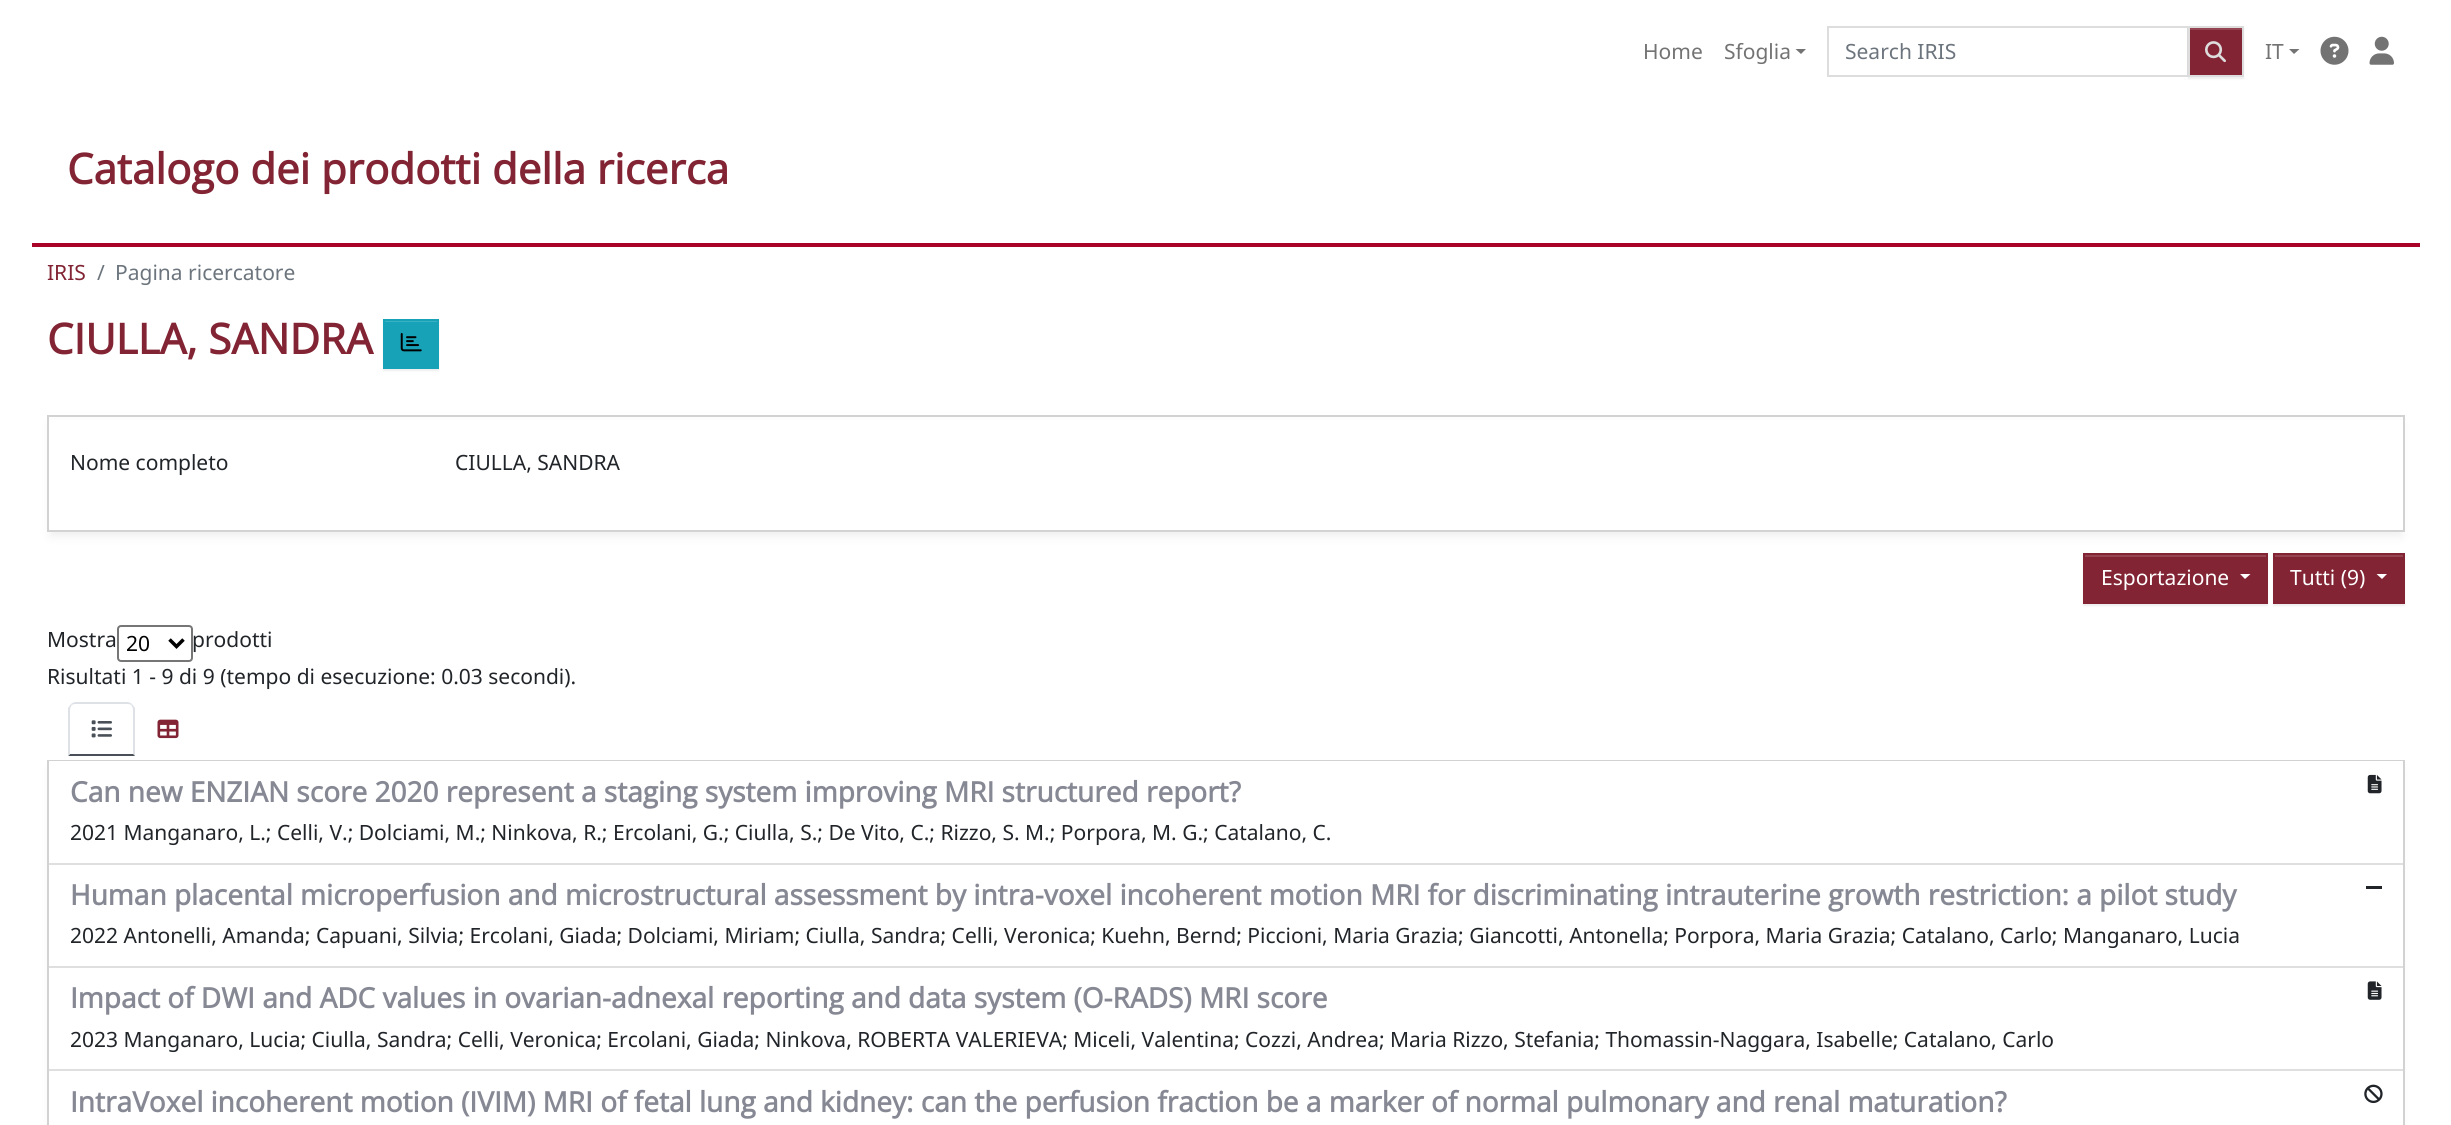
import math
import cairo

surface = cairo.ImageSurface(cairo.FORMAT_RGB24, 2451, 1125)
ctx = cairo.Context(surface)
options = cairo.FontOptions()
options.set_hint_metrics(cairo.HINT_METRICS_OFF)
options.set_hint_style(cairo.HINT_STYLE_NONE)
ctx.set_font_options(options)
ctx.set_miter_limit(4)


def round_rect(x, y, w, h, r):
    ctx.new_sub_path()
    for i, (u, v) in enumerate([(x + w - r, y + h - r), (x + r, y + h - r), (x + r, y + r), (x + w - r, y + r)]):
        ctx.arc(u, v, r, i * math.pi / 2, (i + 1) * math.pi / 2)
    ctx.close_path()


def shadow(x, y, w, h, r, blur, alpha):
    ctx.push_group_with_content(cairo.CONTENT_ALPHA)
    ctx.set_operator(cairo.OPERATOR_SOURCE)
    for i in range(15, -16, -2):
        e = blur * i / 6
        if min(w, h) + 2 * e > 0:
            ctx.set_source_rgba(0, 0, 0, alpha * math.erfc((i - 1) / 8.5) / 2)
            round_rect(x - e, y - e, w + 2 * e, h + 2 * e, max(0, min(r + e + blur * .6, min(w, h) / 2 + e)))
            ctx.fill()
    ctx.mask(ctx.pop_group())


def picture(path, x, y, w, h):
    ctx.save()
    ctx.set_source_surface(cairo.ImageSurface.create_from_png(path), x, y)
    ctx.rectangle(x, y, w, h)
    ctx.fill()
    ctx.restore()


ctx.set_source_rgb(1, 1, 1)
ctx.paint()
ctx.select_font_face("Noto Sans")
ctx.set_font_size(21)
ctx.set_source_rgb(0.451, 0.451, 0.451)
ctx.move_to(1643, 59)
ctx.show_text("Home")
ctx.move_to(1724, 59)
ctx.show_text("Sfoglia")
ctx.new_path()
ctx.move_to(1795.5, 49)
ctx.line_to(1806, 49)
ctx.line_to(1801, 54)
ctx.close_path()
ctx.fill()
ctx.rectangle(1828, 27, 360, 49)
ctx.set_source_rgb(0.867, 0.867, 0.867)
ctx.stroke()
ctx.set_source_rgb(0.424, 0.459, 0.49)
ctx.move_to(1845, 59)
ctx.show_text("Search IRIS")
ctx.set_source_rgb(0, 0, 0)
shadow(2188, 28, 56, 51, 0, 1, 0.07)
ctx.set_source_rgb(0.51, 0.141, 0.2)
ctx.rectangle(2190, 30, 52, 45)
ctx.fill()
ctx.set_source_rgb(0.584, 0.271, 0.322)
ctx.rectangle(2189, 28, 53, 2)
ctx.fill()
ctx.rectangle(2189, 27, 54, 49)
ctx.set_source_rgb(0.867, 0.867, 0.867)
ctx.stroke()
picture("img1.png", 2205, 41, 21, 22)
ctx.set_source_rgb(0.451, 0.451, 0.451)
ctx.move_to(2265, 59)
ctx.show_text("IT")
ctx.new_path()
ctx.move_to(2289, 49)
ctx.line_to(2299.5, 49)
ctx.line_to(2294, 54)
ctx.close_path()
ctx.fill()
picture("img2.png", 2320, 36, 29, 29)
picture("img3.png", 2369, 36, 25, 29)
ctx.set_source_rgb(0.663, 0.012, 0.161)
ctx.rectangle(32, 243, 2388, 4)
ctx.fill()
ctx.select_font_face("Open Sans", cairo.FONT_SLANT_NORMAL, cairo.FONT_WEIGHT_BOLD)
ctx.set_font_size(42)
ctx.set_source_rgb(0.51, 0.141, 0.2)
ctx.move_to(67, 184)
ctx.show_text("Catalogo dei prodotti della ricerca")
ctx.select_font_face("Noto Sans")
ctx.set_font_size(21)
ctx.move_to(47, 280)
ctx.show_text("IRIS")
ctx.set_source_rgb(0.424, 0.459, 0.49)
ctx.move_to(97, 280)
ctx.show_text("/")
ctx.move_to(115, 280)
ctx.show_text("Pagina ricercatore")
ctx.select_font_face("Open Sans", cairo.FONT_SLANT_NORMAL, cairo.FONT_WEIGHT_BOLD)
ctx.set_font_size(42)
ctx.set_source_rgb(0.51, 0.141, 0.2)
ctx.move_to(47, 354)
ctx.show_text("CIULLA, SANDRA")
ctx.set_source_rgb(0, 0, 0)
shadow(383, 320, 56, 51, 0, 1, 0.07)
ctx.set_source_rgb(0.09, 0.635, 0.722)
ctx.rectangle(385, 322, 52, 45)
ctx.fill()
ctx.set_source_rgb(0.227, 0.69, 0.765)
ctx.rectangle(385, 321, 53, 1)
ctx.fill()
ctx.rectangle(384, 320, 54, 48)
ctx.set_source_rgb(0.09, 0.635, 0.722)
ctx.stroke()
picture("img4.png", 400, 333, 22, 19)
ctx.set_source_rgb(0.933, 0.933, 0.933)
shadow(51, 425, 2350, 111, 0, 5, 1)
ctx.set_source_rgb(1, 1, 1)
ctx.rectangle(49, 420, 2354, 110)
ctx.fill()
ctx.rectangle(48, 416, 2356, 115)
ctx.set_source_rgb(0.824, 0.824, 0.824)
ctx.stroke()
ctx.select_font_face("Noto Sans")
ctx.set_font_size(21)
ctx.set_source_rgb(0.129, 0.145, 0.161)
ctx.move_to(70, 470)
ctx.show_text("Nome completo")
ctx.move_to(455, 470)
ctx.show_text("CIULLA, SANDRA")
ctx.set_source_rgb(0, 0, 0)
shadow(2083, 555, 185, 51, 0, 1, 0.07)
ctx.set_source_rgb(0.51, 0.141, 0.2)
ctx.rectangle(2085, 557, 181, 45)
ctx.fill()
ctx.set_source_rgb(0.584, 0.271, 0.322)
ctx.rectangle(2084, 555, 182, 2)
ctx.fill()
ctx.rectangle(2084, 554, 183, 49)
ctx.set_source_rgb(0.51, 0.141, 0.2)
ctx.stroke()
ctx.set_source_rgb(1, 1, 1)
ctx.move_to(2101, 585)
ctx.show_text("Esportazione")
ctx.new_path()
ctx.move_to(2240, 574)
ctx.line_to(2250.5, 574)
ctx.line_to(2245, 579)
ctx.close_path()
ctx.fill()
ctx.set_source_rgb(0, 0, 0)
shadow(2273, 555, 132, 51, 0, 1, 0.07)
ctx.set_source_rgb(0.51, 0.141, 0.2)
ctx.rectangle(2273, 553, 132, 51)
ctx.fill()
ctx.set_source_rgb(0.584, 0.271, 0.322)
ctx.rectangle(2275, 555, 128, 2)
ctx.fill()
ctx.set_source_rgb(1, 1, 1)
ctx.move_to(2290, 585)
ctx.show_text("Tutti (9)")
ctx.new_path()
ctx.move_to(2376.5, 574)
ctx.line_to(2387, 574)
ctx.line_to(2382, 579)
ctx.close_path()
ctx.fill()
ctx.set_source_rgb(0.129, 0.145, 0.161)
ctx.move_to(47, 647)
ctx.show_text("Mostra")
round_rect(118, 626, 74, 35, 3)
ctx.set_source_rgb(0.463, 0.463, 0.463)
ctx.stroke()
ctx.new_path()
ctx.move_to(169.5, 639.5)
ctx.line_to(176.5, 646.5)
ctx.line_to(183.5, 639.5)
ctx.set_source_rgb(0, 0, 0)
ctx.set_line_width(3.5)
ctx.stroke()
ctx.move_to(126, 651)
ctx.show_text("20")
ctx.set_source_rgb(0.129, 0.145, 0.161)
ctx.move_to(192, 647)
ctx.show_text("prodotti")
ctx.move_to(47, 684)
ctx.show_text("Risultati 1 - 9 di 9 (tempo di esecuzione: 0.03 secondi).")
ctx.set_source_rgb(0.871, 0.886, 0.902)
ctx.new_path()
ctx.move_to(76, 702)
ctx.curve_to(74, 702, 72, 703, 71, 704)
ctx.line_to(72, 705)
ctx.curve_to(73, 704, 75, 704, 76, 704)
ctx.line_to(127, 704)
ctx.curve_to(128, 704, 130, 704, 131, 705)
ctx.line_to(132, 704)
ctx.curve_to(131, 703, 129, 702, 127, 702)
ctx.close_path()
ctx.fill()
ctx.new_path()
ctx.move_to(132, 704)
ctx.line_to(135, 708)
ctx.line_to(135, 756)
ctx.line_to(133, 754)
ctx.line_to(133, 710)
ctx.curve_to(133, 708, 132, 706, 131, 705)
ctx.close_path()
ctx.fill()
ctx.set_source_rgb(0.286, 0.314, 0.341)
ctx.new_path()
ctx.move_to(135, 756)
ctx.line_to(133, 754)
ctx.line_to(70, 754)
ctx.line_to(68, 756)
ctx.close_path()
ctx.fill()
ctx.set_source_rgb(0.871, 0.886, 0.902)
ctx.new_path()
ctx.move_to(68, 756)
ctx.line_to(70, 754)
ctx.line_to(70, 710)
ctx.curve_to(70, 708, 71, 706, 72, 705)
ctx.line_to(71, 704)
ctx.line_to(68, 708)
ctx.close_path()
ctx.fill()
picture("img5.png", 91, 720, 21, 18)
picture("img6.png", 157, 719, 22, 20)
ctx.set_source_rgb(0.933, 0.933, 0.933)
shadow(51, 770, 2350, 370, 0, 5, 1)
ctx.set_source_rgb(1, 1, 1)
ctx.rectangle(49, 865, 2354, 260)
ctx.fill()
ctx.rectangle(48, 761, 2356, 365)
ctx.set_source_rgb(0.824, 0.824, 0.824)
ctx.set_line_width(2)
ctx.stroke()
ctx.set_source_rgb(1, 1, 1)
ctx.rectangle(49, 761, 2354, 102)
ctx.fill()
ctx.set_source_rgb(0.875, 0.875, 0.875)
ctx.rectangle(49, 863, 2354, 2)
ctx.fill()
ctx.select_font_face("Open Sans", cairo.FONT_SLANT_NORMAL, cairo.FONT_WEIGHT_BOLD)
ctx.set_font_size(28)
ctx.set_source_rgb(0.525, 0.533, 0.58)
ctx.move_to(70, 802)
ctx.show_text("Can new ENZIAN score 2020 represent a staging system improving MRI structured report?")
picture("img7.png", 2367, 774, 15, 20)
ctx.select_font_face("Noto Sans")
ctx.set_font_size(21)
ctx.set_source_rgb(0.129, 0.145, 0.161)
ctx.move_to(70, 840)
ctx.show_text("2021 Manganaro, L.; Celli, V.; Dolciami, M.; Ninkova, R.; Ercolani, G.; Ciulla, S.; De Vito, C.; Rizzo, S. M.; Porpora, M. G.; Catalano, C.")
ctx.set_source_rgb(0.875, 0.875, 0.875)
ctx.rectangle(49, 966, 2354, 2)
ctx.fill()
ctx.select_font_face("Open Sans", cairo.FONT_SLANT_NORMAL, cairo.FONT_WEIGHT_BOLD)
ctx.set_font_size(28)
ctx.set_source_rgb(0.525, 0.533, 0.58)
ctx.move_to(70, 905)
ctx.show_text("Human placental microperfusion and microstructural assessment by intra-voxel incoherent motion MRI for discriminating intrauterine growth restriction: a pilot study")
ctx.set_source_rgb(0.129, 0.145, 0.161)
ctx.rectangle(2366, 886, 16, 3)
ctx.fill()
ctx.select_font_face("Noto Sans")
ctx.set_font_size(21)
ctx.move_to(70, 943)
ctx.show_text("2022 Antonelli, Amanda; Capuani, Silvia; Ercolani, Giada; Dolciami, Miriam; Ciulla, Sandra; Celli, Veronica; Kuehn, Bernd; Piccioni, Maria Grazia; Giancotti, Antonella; Porpora, Maria Grazia; Catalano, Carlo; Manganaro, Lucia")
ctx.set_source_rgb(0.875, 0.875, 0.875)
ctx.rectangle(49, 1069, 2354, 2)
ctx.fill()
ctx.select_font_face("Open Sans", cairo.FONT_SLANT_NORMAL, cairo.FONT_WEIGHT_BOLD)
ctx.set_font_size(28)
ctx.set_source_rgb(0.525, 0.533, 0.58)
ctx.move_to(70, 1008)
ctx.show_text("Impact of DWI and ADC values in ovarian-adnexal reporting and data system (O-RADS) MRI score")
picture("img8.png", 2367, 981, 15, 19)
ctx.select_font_face("Noto Sans")
ctx.set_font_size(21)
ctx.set_source_rgb(0.129, 0.145, 0.161)
ctx.move_to(70, 1047)
ctx.show_text("2023 Manganaro, Lucia; Ciulla, Sandra; Celli, Veronica; Ercolani, Giada; Ninkova, ROBERTA VALERIEVA; Miceli, Valentina; Cozzi, Andrea; Maria Rizzo, Stefania; Thomassin-Naggara, Isabelle; Catalano, Carlo")
ctx.select_font_face("Open Sans", cairo.FONT_SLANT_NORMAL, cairo.FONT_WEIGHT_BOLD)
ctx.set_font_size(28)
ctx.set_source_rgb(0.525, 0.533, 0.58)
ctx.move_to(70, 1112)
ctx.show_text("IntraVoxel incoherent motion (IVIM) MRI of fetal lung and kidney: can the perfusion fraction be a marker of normal pulmonary and renal maturation?")
picture("img9.png", 2364, 1084, 19, 20)
surface.write_to_png("page.png")
